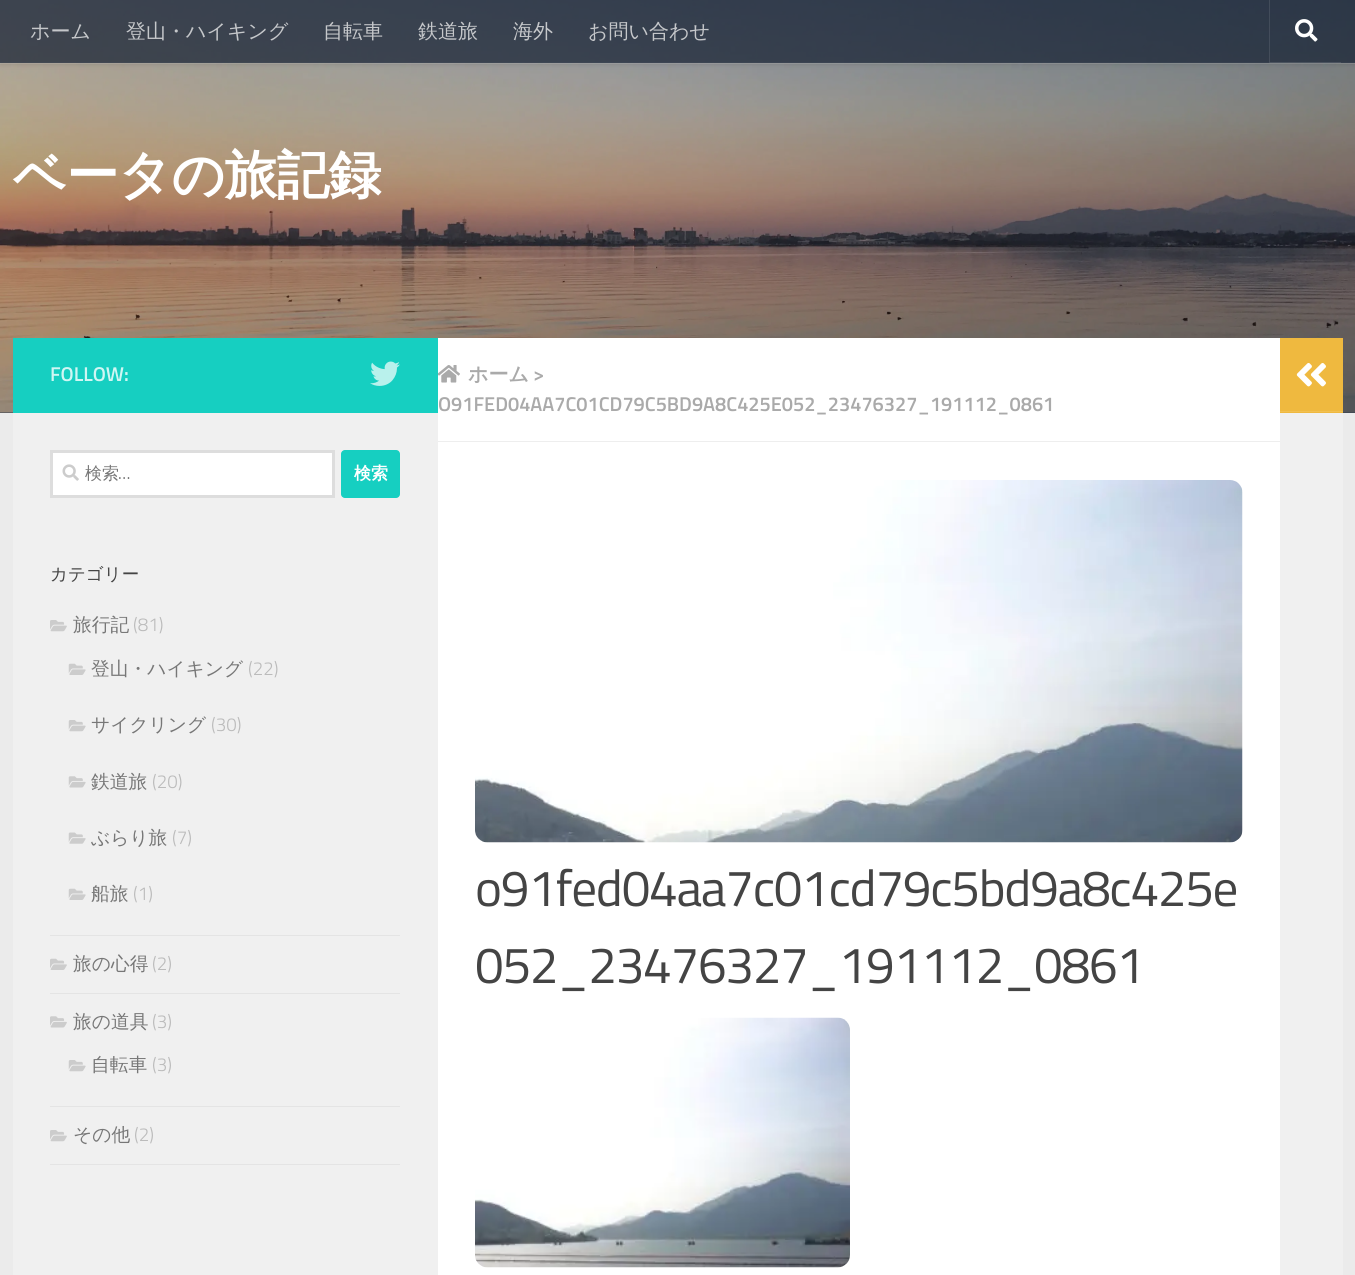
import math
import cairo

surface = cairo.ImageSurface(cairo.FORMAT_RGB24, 1355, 1275)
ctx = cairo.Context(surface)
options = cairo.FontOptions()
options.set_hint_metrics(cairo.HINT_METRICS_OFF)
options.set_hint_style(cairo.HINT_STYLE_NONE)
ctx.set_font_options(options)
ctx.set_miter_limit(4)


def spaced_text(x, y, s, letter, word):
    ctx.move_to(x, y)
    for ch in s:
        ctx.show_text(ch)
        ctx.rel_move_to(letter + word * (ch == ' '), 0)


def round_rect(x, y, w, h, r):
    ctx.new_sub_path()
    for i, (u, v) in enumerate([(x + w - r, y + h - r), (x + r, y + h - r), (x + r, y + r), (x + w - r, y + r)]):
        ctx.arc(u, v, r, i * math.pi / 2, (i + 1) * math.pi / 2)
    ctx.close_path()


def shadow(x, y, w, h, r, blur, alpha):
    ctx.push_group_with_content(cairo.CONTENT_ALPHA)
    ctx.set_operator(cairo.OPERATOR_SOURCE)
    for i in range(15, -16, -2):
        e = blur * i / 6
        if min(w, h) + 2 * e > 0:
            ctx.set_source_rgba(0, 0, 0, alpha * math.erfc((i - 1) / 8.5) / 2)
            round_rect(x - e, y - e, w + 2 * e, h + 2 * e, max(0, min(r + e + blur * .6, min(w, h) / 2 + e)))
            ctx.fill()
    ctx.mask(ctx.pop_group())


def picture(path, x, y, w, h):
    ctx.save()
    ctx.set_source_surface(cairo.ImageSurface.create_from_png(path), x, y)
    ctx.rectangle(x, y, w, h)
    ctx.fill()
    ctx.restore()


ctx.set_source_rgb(0.918, 0.918, 0.918)
ctx.paint()
ctx.set_source_rgb(0.271, 0.306, 0.361)
ctx.rectangle(0, 412, 1355, 1)
ctx.fill()
picture("img1.png", 0, 0, 1355, 413)
ctx.set_source_rgba(0.071, 0.114, 0.188, 0.3)
ctx.rectangle(0, 0, 1355, 413)
ctx.fill()
ctx.set_source_rgba(1, 1, 1, 0.15)
ctx.rectangle(0, 62, 1355, 2)
ctx.fill()
ctx.save()
ctx.set_fill_rule(cairo.FILL_RULE_EVEN_ODD)
ctx.new_path()
ctx.move_to(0, 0)
ctx.line_to(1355, 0)
ctx.line_to(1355, 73)
ctx.line_to(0, 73)
ctx.close_path()
ctx.move_to(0, 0)
ctx.line_to(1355, 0)
ctx.line_to(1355, 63)
ctx.line_to(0, 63)
ctx.close_path()
ctx.clip()
ctx.set_source_rgb(0, 0, 0)
shadow(0, 0, 1355, 63, 0, 3, 0.2)
ctx.restore()
ctx.set_source_rgba(0.071, 0.114, 0.188, 0.7)
ctx.rectangle(0, 0, 1355, 63)
ctx.fill()
ctx.select_font_face("WenQuanYi Zen Hei Medium")
ctx.set_font_size(20)
ctx.set_source_rgb(0.773, 0.78, 0.792)
ctx.move_to(30, 38)
ctx.show_text("ホーム")
ctx.move_to(126, 38)
ctx.show_text("登山・ハイキング")
ctx.move_to(323, 38)
ctx.show_text("自転車")
ctx.move_to(418, 38)
ctx.show_text("鉄道旅")
ctx.move_to(513, 38)
ctx.show_text("海外")
ctx.move_to(588, 38)
ctx.show_text("お問い合わせ")
ctx.set_source_rgba(1, 1, 1, 0.1)
ctx.new_path()
ctx.move_to(1269, 0)
ctx.line_to(1269, 63)
ctx.line_to(1341, 63)
ctx.line_to(1341, 62)
ctx.line_to(1270, 62)
ctx.line_to(1270, 0)
ctx.close_path()
ctx.fill()
picture("img2.png", 1295, 19, 23, 23)
ctx.select_font_face("WenQuanYi Zen Hei", cairo.FONT_SLANT_NORMAL, cairo.FONT_WEIGHT_BOLD)
ctx.set_font_size(52.5)
ctx.set_source_rgb(1, 1, 1)
spaced_text(13, 193, "ベータの旅記録", -0.5, 0)
ctx.rectangle(438, 338, 842, 937)
ctx.fill()
ctx.set_source_rgb(0.086, 0.812, 0.757)
ctx.rectangle(13, 338, 425, 75)
ctx.fill()
ctx.select_font_face("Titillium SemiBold")
ctx.set_font_size(20)
ctx.set_source_rgb(0.816, 0.961, 0.953)
ctx.move_to(50, 381)
ctx.show_text("FOLLOW:")
picture("img3.png", 370, 361, 30, 25)
ctx.set_source_rgb(0.941, 0.941, 0.941)
ctx.rectangle(13, 413, 425, 862)
ctx.fill()
ctx.set_source_rgb(1, 1, 1)
ctx.rectangle(51.5, 451.5, 282, 45)
ctx.fill_preserve()
ctx.set_source_rgb(0.867, 0.867, 0.867)
ctx.set_line_width(3)
ctx.stroke()
picture("img4.png", 62, 464, 17, 17)
ctx.select_font_face("WenQuanYi Zen Hei Medium")
ctx.set_font_size(17)
ctx.set_source_rgb(0.467, 0.467, 0.467)
ctx.move_to(85, 479)
ctx.show_text("検索")
ctx.select_font_face("Titillium")
ctx.move_to(118, 479)
ctx.show_text("…")
ctx.set_source_rgb(0.086, 0.812, 0.757)
round_rect(341, 450, 59, 48, 4)
ctx.fill()
ctx.select_font_face("WenQuanYi Zen Hei", cairo.FONT_SLANT_NORMAL, cairo.FONT_WEIGHT_BOLD)
ctx.set_source_rgb(1, 1, 1)
ctx.move_to(354, 479)
ctx.show_text("検索")
ctx.select_font_face("WenQuanYi Zen Hei Medium")
ctx.set_font_size(17.5)
ctx.set_source_rgb(0.267, 0.267, 0.267)
ctx.move_to(50, 580)
ctx.show_text("カテゴリー")
ctx.set_source_rgb(0.894, 0.894, 0.894)
ctx.rectangle(50, 935, 350, 1)
ctx.fill()
picture("img5.png", 50, 620, 17, 12)
ctx.set_font_size(18.75)
ctx.set_source_rgb(0.467, 0.467, 0.467)
ctx.move_to(73, 631)
ctx.show_text("旅行記")
ctx.select_font_face("Titillium Light")
ctx.set_source_rgb(0.733, 0.733, 0.733)
ctx.move_to(133, 631)
ctx.show_text("(81)")
picture("img6.png", 68, 663, 18, 12)
ctx.select_font_face("WenQuanYi Zen Hei Medium")
ctx.set_source_rgb(0.467, 0.467, 0.467)
ctx.move_to(91, 675)
ctx.show_text("登山・ハイキング")
ctx.select_font_face("Titillium Light")
ctx.set_source_rgb(0.733, 0.733, 0.733)
ctx.move_to(248, 675)
ctx.show_text("(22)")
picture("img7.png", 68, 720, 18, 12)
ctx.select_font_face("WenQuanYi Zen Hei Medium")
ctx.set_source_rgb(0.467, 0.467, 0.467)
ctx.move_to(91, 731)
ctx.show_text("サイクリング")
ctx.select_font_face("Titillium Light")
ctx.set_source_rgb(0.733, 0.733, 0.733)
ctx.move_to(211, 731)
ctx.show_text("(30)")
picture("img8.png", 68, 776, 18, 12)
ctx.select_font_face("WenQuanYi Zen Hei Medium")
ctx.set_source_rgb(0.467, 0.467, 0.467)
ctx.move_to(91, 788)
ctx.show_text("鉄道旅")
ctx.select_font_face("Titillium Light")
ctx.set_source_rgb(0.733, 0.733, 0.733)
ctx.move_to(152, 788)
ctx.show_text("(20)")
picture("img9.png", 68, 832, 18, 12)
ctx.select_font_face("WenQuanYi Zen Hei Medium")
ctx.set_source_rgb(0.467, 0.467, 0.467)
ctx.move_to(91, 844)
ctx.show_text("ぶらり旅")
ctx.select_font_face("Titillium Light")
ctx.set_source_rgb(0.733, 0.733, 0.733)
ctx.move_to(172, 844)
ctx.show_text("(7)")
picture("img6.png", 68, 888, 18, 12)
ctx.select_font_face("WenQuanYi Zen Hei Medium")
ctx.set_source_rgb(0.467, 0.467, 0.467)
ctx.move_to(91, 900)
ctx.show_text("船旅")
ctx.select_font_face("Titillium Light")
ctx.set_source_rgb(0.733, 0.733, 0.733)
ctx.move_to(133, 900)
ctx.show_text("(1)")
ctx.set_source_rgb(0.894, 0.894, 0.894)
ctx.rectangle(50, 993, 350, 1)
ctx.fill()
picture("img10.png", 50, 958, 17, 12)
ctx.select_font_face("WenQuanYi Zen Hei Medium")
ctx.set_source_rgb(0.467, 0.467, 0.467)
ctx.move_to(73, 970)
ctx.show_text("旅の心得")
ctx.select_font_face("Titillium Light")
ctx.set_source_rgb(0.733, 0.733, 0.733)
ctx.move_to(152, 970)
ctx.show_text("(2)")
ctx.set_source_rgb(0.894, 0.894, 0.894)
ctx.rectangle(50, 1106, 350, 1)
ctx.fill()
picture("img11.png", 50, 1016, 17, 12)
ctx.select_font_face("WenQuanYi Zen Hei Medium")
ctx.set_source_rgb(0.467, 0.467, 0.467)
ctx.move_to(73, 1028)
ctx.show_text("旅の道具")
ctx.select_font_face("Titillium Light")
ctx.set_source_rgb(0.733, 0.733, 0.733)
ctx.move_to(152, 1028)
ctx.show_text("(3)")
picture("img7.png", 68, 1060, 18, 12)
ctx.select_font_face("WenQuanYi Zen Hei Medium")
ctx.set_source_rgb(0.467, 0.467, 0.467)
ctx.move_to(91, 1071)
ctx.show_text("自転車")
ctx.select_font_face("Titillium Light")
ctx.set_source_rgb(0.733, 0.733, 0.733)
ctx.move_to(152, 1071)
ctx.show_text("(3)")
ctx.set_source_rgb(0.894, 0.894, 0.894)
ctx.rectangle(50, 1164, 350, 1)
ctx.fill()
picture("img5.png", 50, 1130, 17, 12)
ctx.select_font_face("WenQuanYi Zen Hei Medium")
ctx.set_source_rgb(0.467, 0.467, 0.467)
ctx.move_to(73, 1141)
ctx.show_text("その他")
ctx.select_font_face("Titillium Light")
ctx.set_source_rgb(0.733, 0.733, 0.733)
ctx.move_to(134, 1141)
ctx.show_text("(2)")
ctx.set_source_rgb(0.933, 0.933, 0.933)
ctx.rectangle(438, 441, 842, 1)
ctx.fill()
picture("img12.png", 438, 365, 22, 18)
ctx.select_font_face("WenQuanYi Zen Hei", cairo.FONT_SLANT_NORMAL, cairo.FONT_WEIGHT_BOLD)
ctx.set_font_size(20)
ctx.set_source_rgb(0.667, 0.667, 0.667)
ctx.move_to(468, 381)
ctx.show_text("ホーム")
ctx.select_font_face("Titillium SemiBold")
ctx.move_to(533, 381)
ctx.show_text(">")
ctx.move_to(438, 411)
ctx.show_text("O91FED04AA7C01CD79C5BD9A8C425E052_23476327_191112_0861")
picture("img13.png", 475, 480, 768, 363)
ctx.select_font_face("Titillium")
ctx.set_font_size(51.2)
ctx.set_source_rgb(0.267, 0.267, 0.267)
spaced_text(475, 906, "o91fed04aa7c01cd79c5bd9a8c425e", -1.25, 0)
spaced_text(475, 983, "052_23476327_191112_0861", -1.25, 0)
picture("img14.png", 475, 1017, 375, 251)
ctx.set_source_rgb(0.937, 0.725, 0.247)
ctx.rectangle(1280, 338, 63, 75)
ctx.fill()
ctx.set_source_rgb(0.945, 0.753, 0.322)
ctx.rectangle(1280, 411, 63, 1)
ctx.fill()
picture("img15.png", 1296, 363, 30, 24)
ctx.set_source_rgb(0.941, 0.941, 0.941)
ctx.rectangle(1280, 413, 63, 862)
ctx.fill()
surface.write_to_png("page.png")
